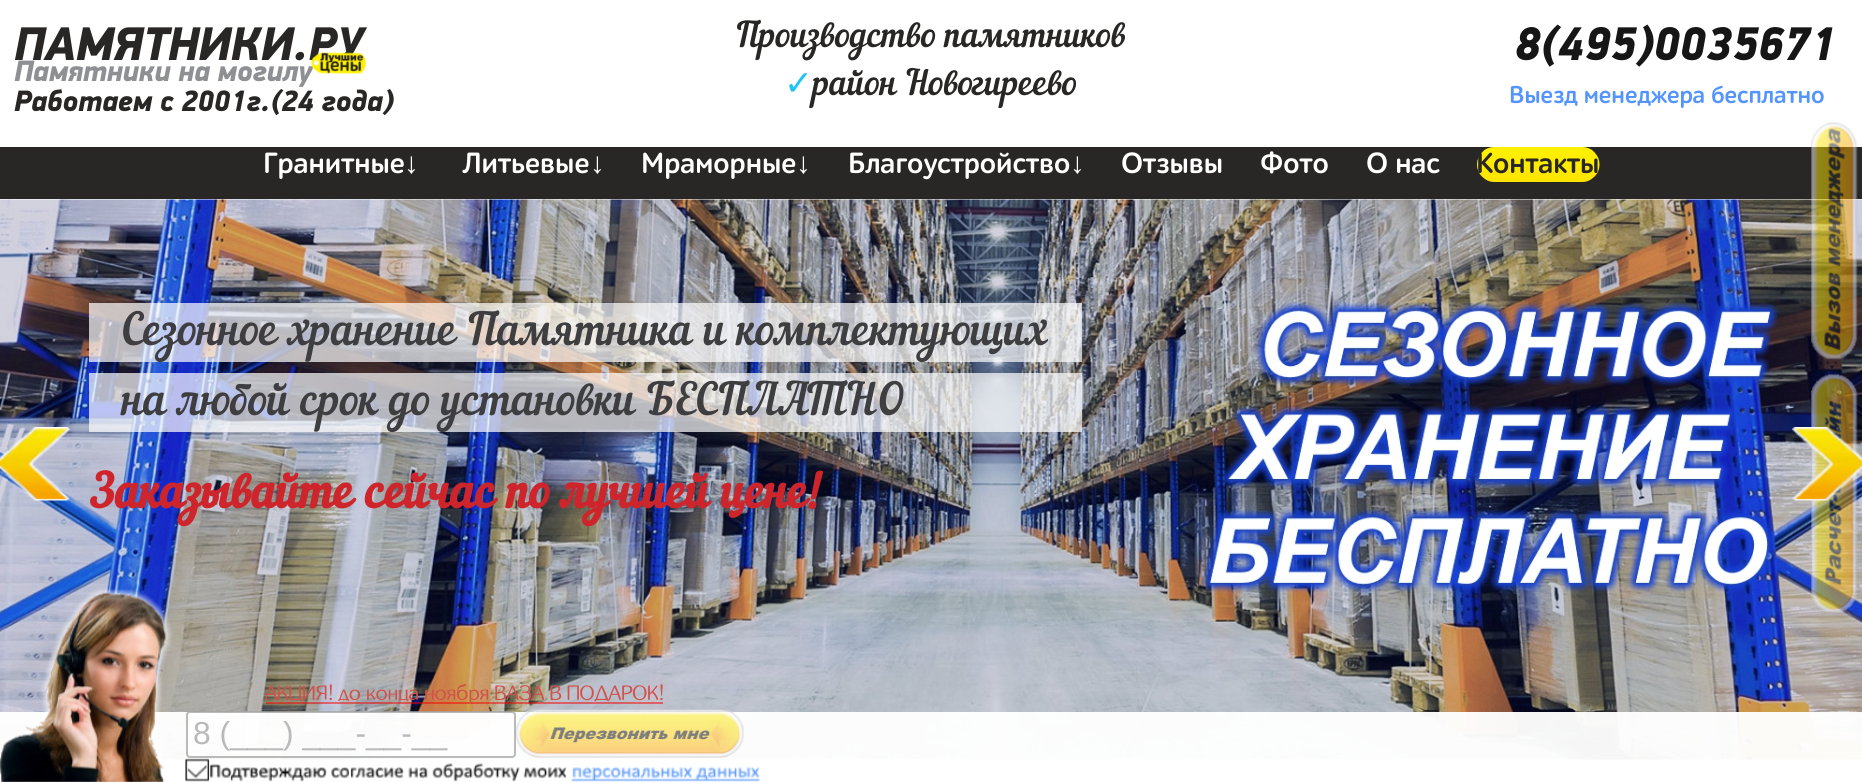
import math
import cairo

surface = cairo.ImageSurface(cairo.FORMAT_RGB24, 1862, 782)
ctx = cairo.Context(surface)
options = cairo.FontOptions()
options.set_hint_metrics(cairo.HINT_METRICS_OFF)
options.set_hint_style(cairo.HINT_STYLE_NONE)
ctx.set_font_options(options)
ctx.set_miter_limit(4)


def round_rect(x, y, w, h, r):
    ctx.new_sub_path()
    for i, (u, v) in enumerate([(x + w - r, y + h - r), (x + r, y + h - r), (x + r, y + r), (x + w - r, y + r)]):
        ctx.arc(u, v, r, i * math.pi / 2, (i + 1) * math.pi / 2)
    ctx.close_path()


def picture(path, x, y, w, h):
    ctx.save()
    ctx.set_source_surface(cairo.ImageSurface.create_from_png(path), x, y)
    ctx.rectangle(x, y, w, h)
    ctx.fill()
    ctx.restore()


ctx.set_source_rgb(1, 1, 1)
ctx.paint()
ctx.select_font_face("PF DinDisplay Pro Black", cairo.FONT_SLANT_ITALIC)
ctx.set_font_size(47.4)
ctx.set_source_rgb(0.157, 0.153, 0.145)
ctx.move_to(14, 60)
ctx.show_text("ПАМЯТНИКИ.РУ")
ctx.set_font_size(29.6)
ctx.set_source_rgb(0.561, 0.565, 0.576)
ctx.move_to(14, 81)
ctx.show_text("Памятники на могилу")
picture("img1.png", 311, 52, 55, 22)
ctx.set_source_rgb(0.157, 0.153, 0.145)
ctx.move_to(14, 111)
ctx.show_text("Работаем с 2001г.(24 года)")
ctx.select_font_face("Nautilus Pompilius")
ctx.set_font_size(34.75)
ctx.move_to(736, 47)
ctx.show_text("Производство памятников")
ctx.select_font_face("DejaVu Sans")
ctx.set_source_rgb(0.125, 0.769, 0.957)
ctx.move_to(784, 95)
ctx.show_text("✓")
ctx.select_font_face("Nautilus Pompilius")
ctx.set_source_rgb(0.157, 0.153, 0.145)
ctx.move_to(813, 95)
ctx.show_text("район Новогиреево")
ctx.select_font_face("PF DinDisplay Pro Black", cairo.FONT_SLANT_ITALIC)
ctx.set_font_size(47.4)
ctx.set_source_rgb(0.086, 0.086, 0.086)
ctx.move_to(1514, 60)
ctx.show_text("8(495)0035671")
ctx.select_font_face("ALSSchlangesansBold", cairo.FONT_SLANT_NORMAL, cairo.FONT_WEIGHT_BOLD)
ctx.set_font_size(24.7)
ctx.set_source_rgb(0.325, 0.58, 1)
ctx.move_to(1509, 103)
ctx.show_text("Выезд менеджера бесплатно")
ctx.set_source_rgb(0.157, 0.153, 0.145)
ctx.rectangle(0, 147, 1862, 52)
ctx.fill()
ctx.set_font_size(29.6)
ctx.set_source_rgb(1, 1, 1)
ctx.move_to(263, 173)
ctx.show_text("Гранитные")
ctx.move_to(463, 173)
ctx.show_text("Литьевые")
ctx.move_to(641, 173)
ctx.show_text("Мраморные")
ctx.move_to(848, 173)
ctx.show_text("Благоустройство")
ctx.move_to(1121, 173)
ctx.show_text("Отзывы")
ctx.move_to(1260, 173)
ctx.show_text("Фото")
ctx.move_to(1366, 173)
ctx.show_text("О нас")
picture("img2.png", 1477, 147, 123, 35)
ctx.select_font_face("Liberation Serif")
ctx.move_to(404, 173)
ctx.show_text("↓")
ctx.move_to(590, 173)
ctx.show_text("↓")
ctx.move_to(796, 173)
ctx.show_text("↓")
ctx.move_to(1070, 173)
ctx.show_text("↓")
ctx.select_font_face("ALSSchlangesansBold", cairo.FONT_SLANT_NORMAL, cairo.FONT_WEIGHT_BOLD)
ctx.set_source_rgb(0.157, 0.153, 0.145)
ctx.move_to(1476, 173)
ctx.show_text("Контакты")
picture("img6.png", 0, 199, 1862, 561)
picture("img3.png", 1811, 122, 47, 238)
picture("img4.png", 1811, 374, 47, 239)
picture("img5.png", 0, 427, 70, 74)
ctx.set_source_rgba(1, 1, 1, 0.7)
ctx.rectangle(89, 303, 993, 59)
ctx.fill()
ctx.select_font_face("Nautilus Pompilius")
ctx.set_font_size(44.4)
ctx.set_source_rgb(0.243, 0.243, 0.251)
ctx.move_to(122, 345)
ctx.show_text("Сезонное хранение Памятника и комплектующих")
ctx.set_source_rgba(1, 1, 1, 0.7)
ctx.rectangle(89, 373, 993, 59)
ctx.fill()
ctx.set_source_rgb(0.243, 0.243, 0.251)
ctx.move_to(122, 415)
ctx.show_text("на любой срок до установки БЕСПЛАТНО")
ctx.select_font_face("Nautilus Pompilius", cairo.FONT_SLANT_NORMAL, cairo.FONT_WEIGHT_BOLD)
ctx.set_font_size(47.4)
ctx.set_source_rgb(0.808, 0.145, 0.173)
ctx.move_to(89, 508)
ctx.show_text("Заказывайте сейчас по лучшей цене!")
picture("img7.png", 1792, 427, 70, 74)
ctx.set_source_rgba(1, 1, 1, 0.96)
ctx.rectangle(0, 712, 1862, 48)
ctx.fill()
picture("img8.png", 0, 589, 172, 193)
ctx.set_source_rgba(0.961, 0, 0, 0.5)
ctx.rectangle(266, 702, 397, 2)
ctx.fill()
ctx.select_font_face("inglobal")
ctx.set_font_size(20.75)
ctx.set_source_rgb(0.82, 0.318, 0.294)
ctx.move_to(265, 700)
ctx.show_text("АКЦИЯ! до конца ноября ВАЗА В ПОДАРОК!")
ctx.set_source_rgba(1, 1, 1, 0.5)
round_rect(186, 711, 330, 47, 4)
ctx.fill()
round_rect(187, 712, 328, 45, 3)
ctx.set_source_rgba(0.463, 0.463, 0.463, 0.5)
ctx.stroke()
ctx.select_font_face("Liberation Sans")
ctx.set_font_size(31.75)
ctx.set_source_rgb(0.725, 0.725, 0.725)
ctx.move_to(193, 744)
ctx.show_text("8 (___) ___-__-__")
picture("img9.png", 516, 708, 228, 50)
picture("img10.png", 185, 758, 575, 24)
surface.write_to_png("page.png")
